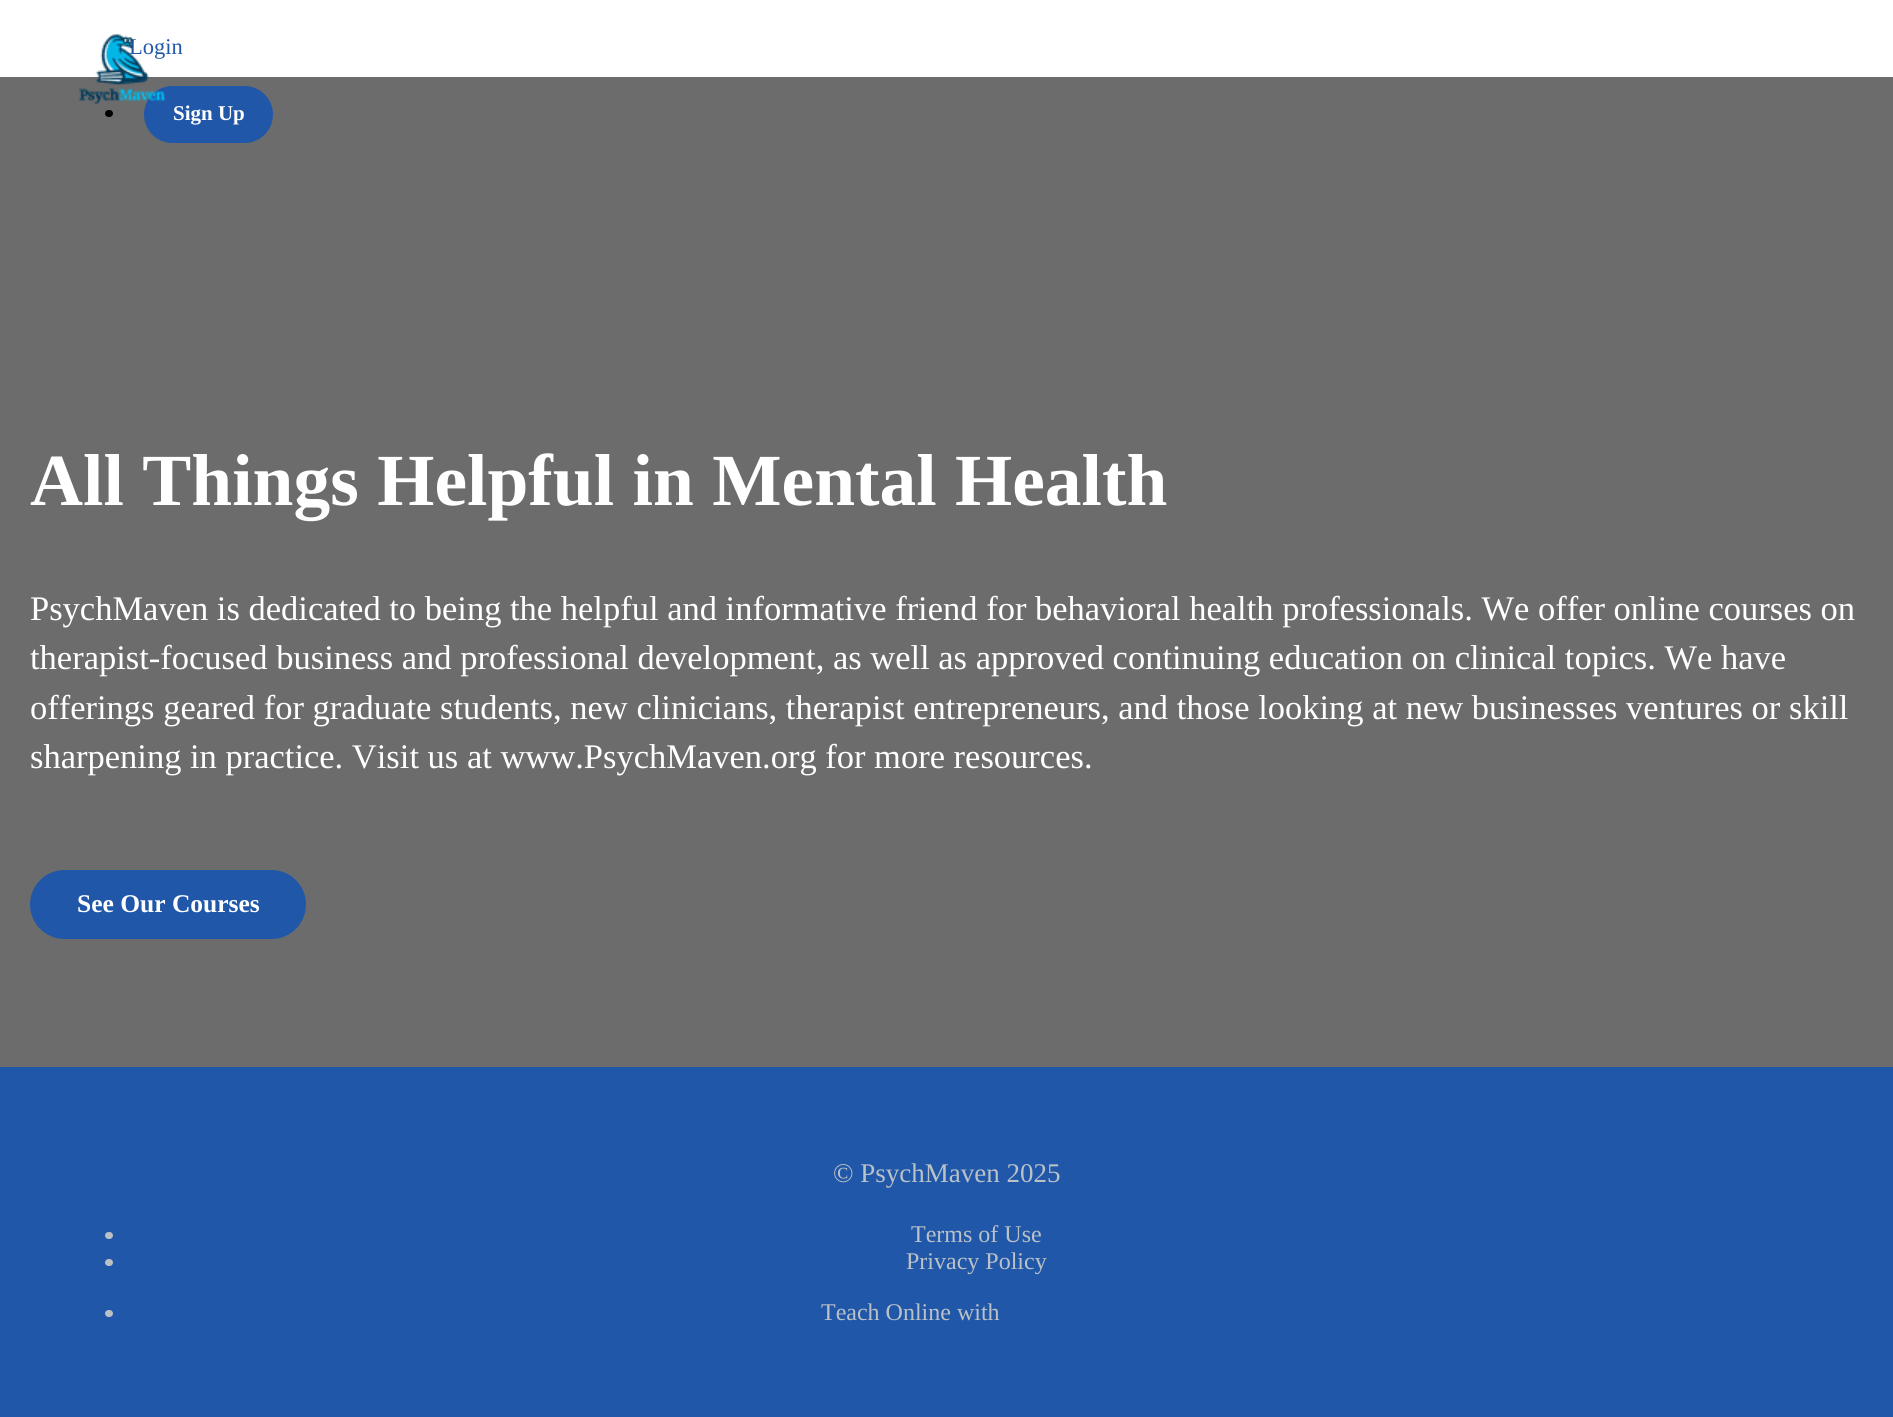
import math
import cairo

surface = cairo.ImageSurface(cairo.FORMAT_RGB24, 1893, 1417)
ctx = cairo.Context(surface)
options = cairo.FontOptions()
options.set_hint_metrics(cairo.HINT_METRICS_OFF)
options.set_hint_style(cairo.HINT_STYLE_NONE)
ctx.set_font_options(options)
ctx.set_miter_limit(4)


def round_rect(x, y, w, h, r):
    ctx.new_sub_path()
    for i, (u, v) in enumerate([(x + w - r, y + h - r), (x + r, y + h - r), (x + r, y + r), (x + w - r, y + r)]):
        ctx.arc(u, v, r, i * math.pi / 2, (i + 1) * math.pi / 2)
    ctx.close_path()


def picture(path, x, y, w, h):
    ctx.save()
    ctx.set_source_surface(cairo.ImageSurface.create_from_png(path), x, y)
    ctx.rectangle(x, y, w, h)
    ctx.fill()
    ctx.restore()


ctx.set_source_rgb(1, 1, 1)
ctx.paint()
ctx.select_font_face("Liberation Serif")
ctx.set_font_size(22.5)
ctx.set_source_rgb(0.125, 0.341, 0.659)
ctx.move_to(129, 54)
ctx.show_text("Login")
ctx.set_source_rgb(0.424, 0.424, 0.424)
ctx.rectangle(0, 77, 1893, 990)
ctx.fill()
ctx.set_source_rgb(0.125, 0.341, 0.659)
round_rect(145, 87, 127, 55, 27.5)
ctx.fill_preserve()
ctx.stroke()
picture("img1.png", 79, 34, 87, 71)
ctx.set_source_rgb(0, 0, 0)
round_rect(105, 110, 8, 7, 3.5)
ctx.fill()
ctx.select_font_face("Liberation Serif", cairo.FONT_SLANT_NORMAL, cairo.FONT_WEIGHT_BOLD)
ctx.set_font_size(21)
ctx.set_source_rgb(1, 1, 1)
ctx.move_to(173, 120)
ctx.show_text("Sign Up")
ctx.set_font_size(73.5)
ctx.move_to(30, 505)
ctx.show_text("All Things Helpful in Mental Health")
ctx.select_font_face("Liberation Serif")
ctx.set_font_size(34.5)
ctx.move_to(30, 620)
ctx.show_text("PsychMaven is dedicated to being the helpful and informative friend for behavioral health professionals. We offer online courses on")
ctx.move_to(30, 669)
ctx.show_text("therapist-focused business and professional development, as well as approved continuing education on clinical topics. We have")
ctx.move_to(30, 719)
ctx.show_text("offerings geared for graduate students, new clinicians, therapist entrepreneurs, and those looking at new businesses ventures or skill")
ctx.move_to(30, 768)
ctx.show_text("sharpening in practice. Visit us at www.PsychMaven.org for more resources.")
ctx.set_source_rgb(0.125, 0.341, 0.659)
round_rect(31, 871, 274, 67, 33.5)
ctx.fill_preserve()
ctx.stroke()
ctx.select_font_face("Liberation Serif", cairo.FONT_SLANT_NORMAL, cairo.FONT_WEIGHT_BOLD)
ctx.set_font_size(25.5)
ctx.set_source_rgb(1, 1, 1)
ctx.move_to(77, 912)
ctx.show_text("See Our Courses")
ctx.set_source_rgb(0.125, 0.341, 0.659)
ctx.rectangle(0, 1067, 1893, 350)
ctx.fill()
ctx.select_font_face("Liberation Serif")
ctx.set_font_size(27)
ctx.set_source_rgb(0.729, 0.757, 0.78)
ctx.move_to(833, 1182)
ctx.show_text("© PsychMaven 2025")
round_rect(105, 1232, 8, 7, 3.5)
ctx.fill()
ctx.set_font_size(24)
ctx.move_to(911, 1242)
ctx.show_text("Terms of Use")
round_rect(105, 1259, 8, 7, 3.5)
ctx.fill()
ctx.move_to(906, 1269)
ctx.show_text("Privacy Policy")
round_rect(105, 1310, 8, 7, 3.5)
ctx.fill()
ctx.move_to(821, 1320)
ctx.show_text("Teach Online with")
surface.write_to_png("page.png")
